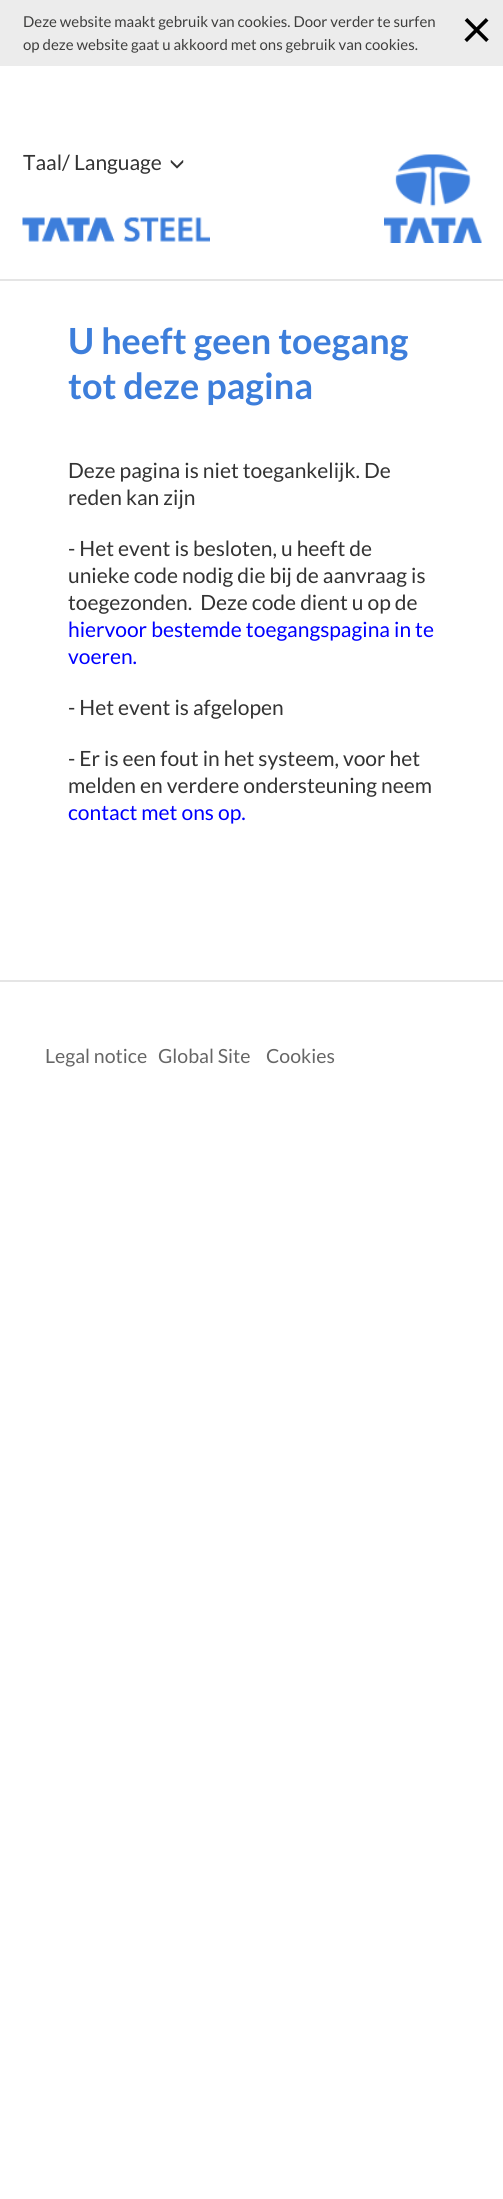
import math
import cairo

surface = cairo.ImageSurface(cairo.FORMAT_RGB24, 503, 2199)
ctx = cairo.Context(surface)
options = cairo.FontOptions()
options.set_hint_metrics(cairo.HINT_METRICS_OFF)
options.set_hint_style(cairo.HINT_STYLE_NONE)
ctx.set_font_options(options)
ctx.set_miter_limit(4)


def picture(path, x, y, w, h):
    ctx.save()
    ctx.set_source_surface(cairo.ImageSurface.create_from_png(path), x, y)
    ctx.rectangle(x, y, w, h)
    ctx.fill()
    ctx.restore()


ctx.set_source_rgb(1, 1, 1)
ctx.paint()
ctx.set_source_rgb(0.922, 0.922, 0.922)
ctx.rectangle(0, 0, 503, 66)
ctx.fill()
ctx.select_font_face("Lato")
ctx.set_font_size(15)
ctx.set_source_rgb(0.243, 0.243, 0.239)
ctx.move_to(23, 27)
ctx.show_text("Deze website maakt gebruik van cookies. Door verder te surfen")
ctx.move_to(23, 50)
ctx.show_text("op deze website gaat u akkoord met ons gebruik van cookies.")
ctx.set_font_size(54)
ctx.set_source_rgb(0, 0, 0)
ctx.move_to(461, 48)
ctx.show_text("×")
ctx.set_font_size(21)
ctx.set_source_rgb(0.2, 0.2, 0.2)
ctx.move_to(23, 170)
ctx.show_text("Taal/ Language")
picture("img1.png", 170, 160, 14, 9)
picture("img2.png", 384, 154, 98, 89)
picture("img3.png", 22, 217, 188, 25)
ctx.set_source_rgb(0.898, 0.898, 0.898)
ctx.rectangle(0, 279, 503, 2)
ctx.fill()
ctx.select_font_face("Lato", cairo.FONT_SLANT_NORMAL, cairo.FONT_WEIGHT_BOLD)
ctx.set_font_size(36)
ctx.set_source_rgb(0.239, 0.494, 0.859)
ctx.move_to(68, 354)
ctx.show_text("U heeft geen toegang")
ctx.move_to(68, 399)
ctx.show_text("tot deze pagina")
ctx.select_font_face("Lato")
ctx.set_font_size(21)
ctx.set_source_rgb(0.2, 0.2, 0.2)
ctx.move_to(68, 478)
ctx.show_text("Deze pagina is niet toegankelijk. De")
ctx.move_to(68, 505)
ctx.show_text("reden kan zijn")
ctx.move_to(68, 556)
ctx.show_text("- Het event is besloten, u heeft de")
ctx.move_to(68, 583)
ctx.show_text("unieke code nodig die bij de aanvraag is")
ctx.move_to(68, 610)
ctx.show_text("toegezonden.  Deze code dient u op de")
ctx.set_source_rgb(0, 0, 1)
ctx.move_to(68, 637)
ctx.show_text("hiervoor bestemde toegangspagina in te")
ctx.move_to(68, 664)
ctx.show_text("voeren.")
ctx.set_source_rgb(0.2, 0.2, 0.2)
ctx.move_to(68, 715)
ctx.show_text("- Het event is afgelopen")
ctx.move_to(68, 766)
ctx.show_text("- Er is een fout in het systeem, voor het")
ctx.move_to(68, 793)
ctx.show_text("melden en verdere ondersteuning neem")
ctx.set_source_rgb(0, 0, 1)
ctx.move_to(68, 820)
ctx.show_text("contact met ons op.")
ctx.set_source_rgb(0.898, 0.898, 0.898)
ctx.rectangle(0, 980, 503, 2)
ctx.fill()
ctx.set_font_size(19.5)
ctx.set_source_rgb(0.4, 0.4, 0.4)
ctx.move_to(45, 1063)
ctx.show_text("Legal notice")
ctx.move_to(158, 1063)
ctx.show_text("Global Site")
ctx.move_to(266, 1063)
ctx.show_text("Cookies")
surface.write_to_png("page.png")
